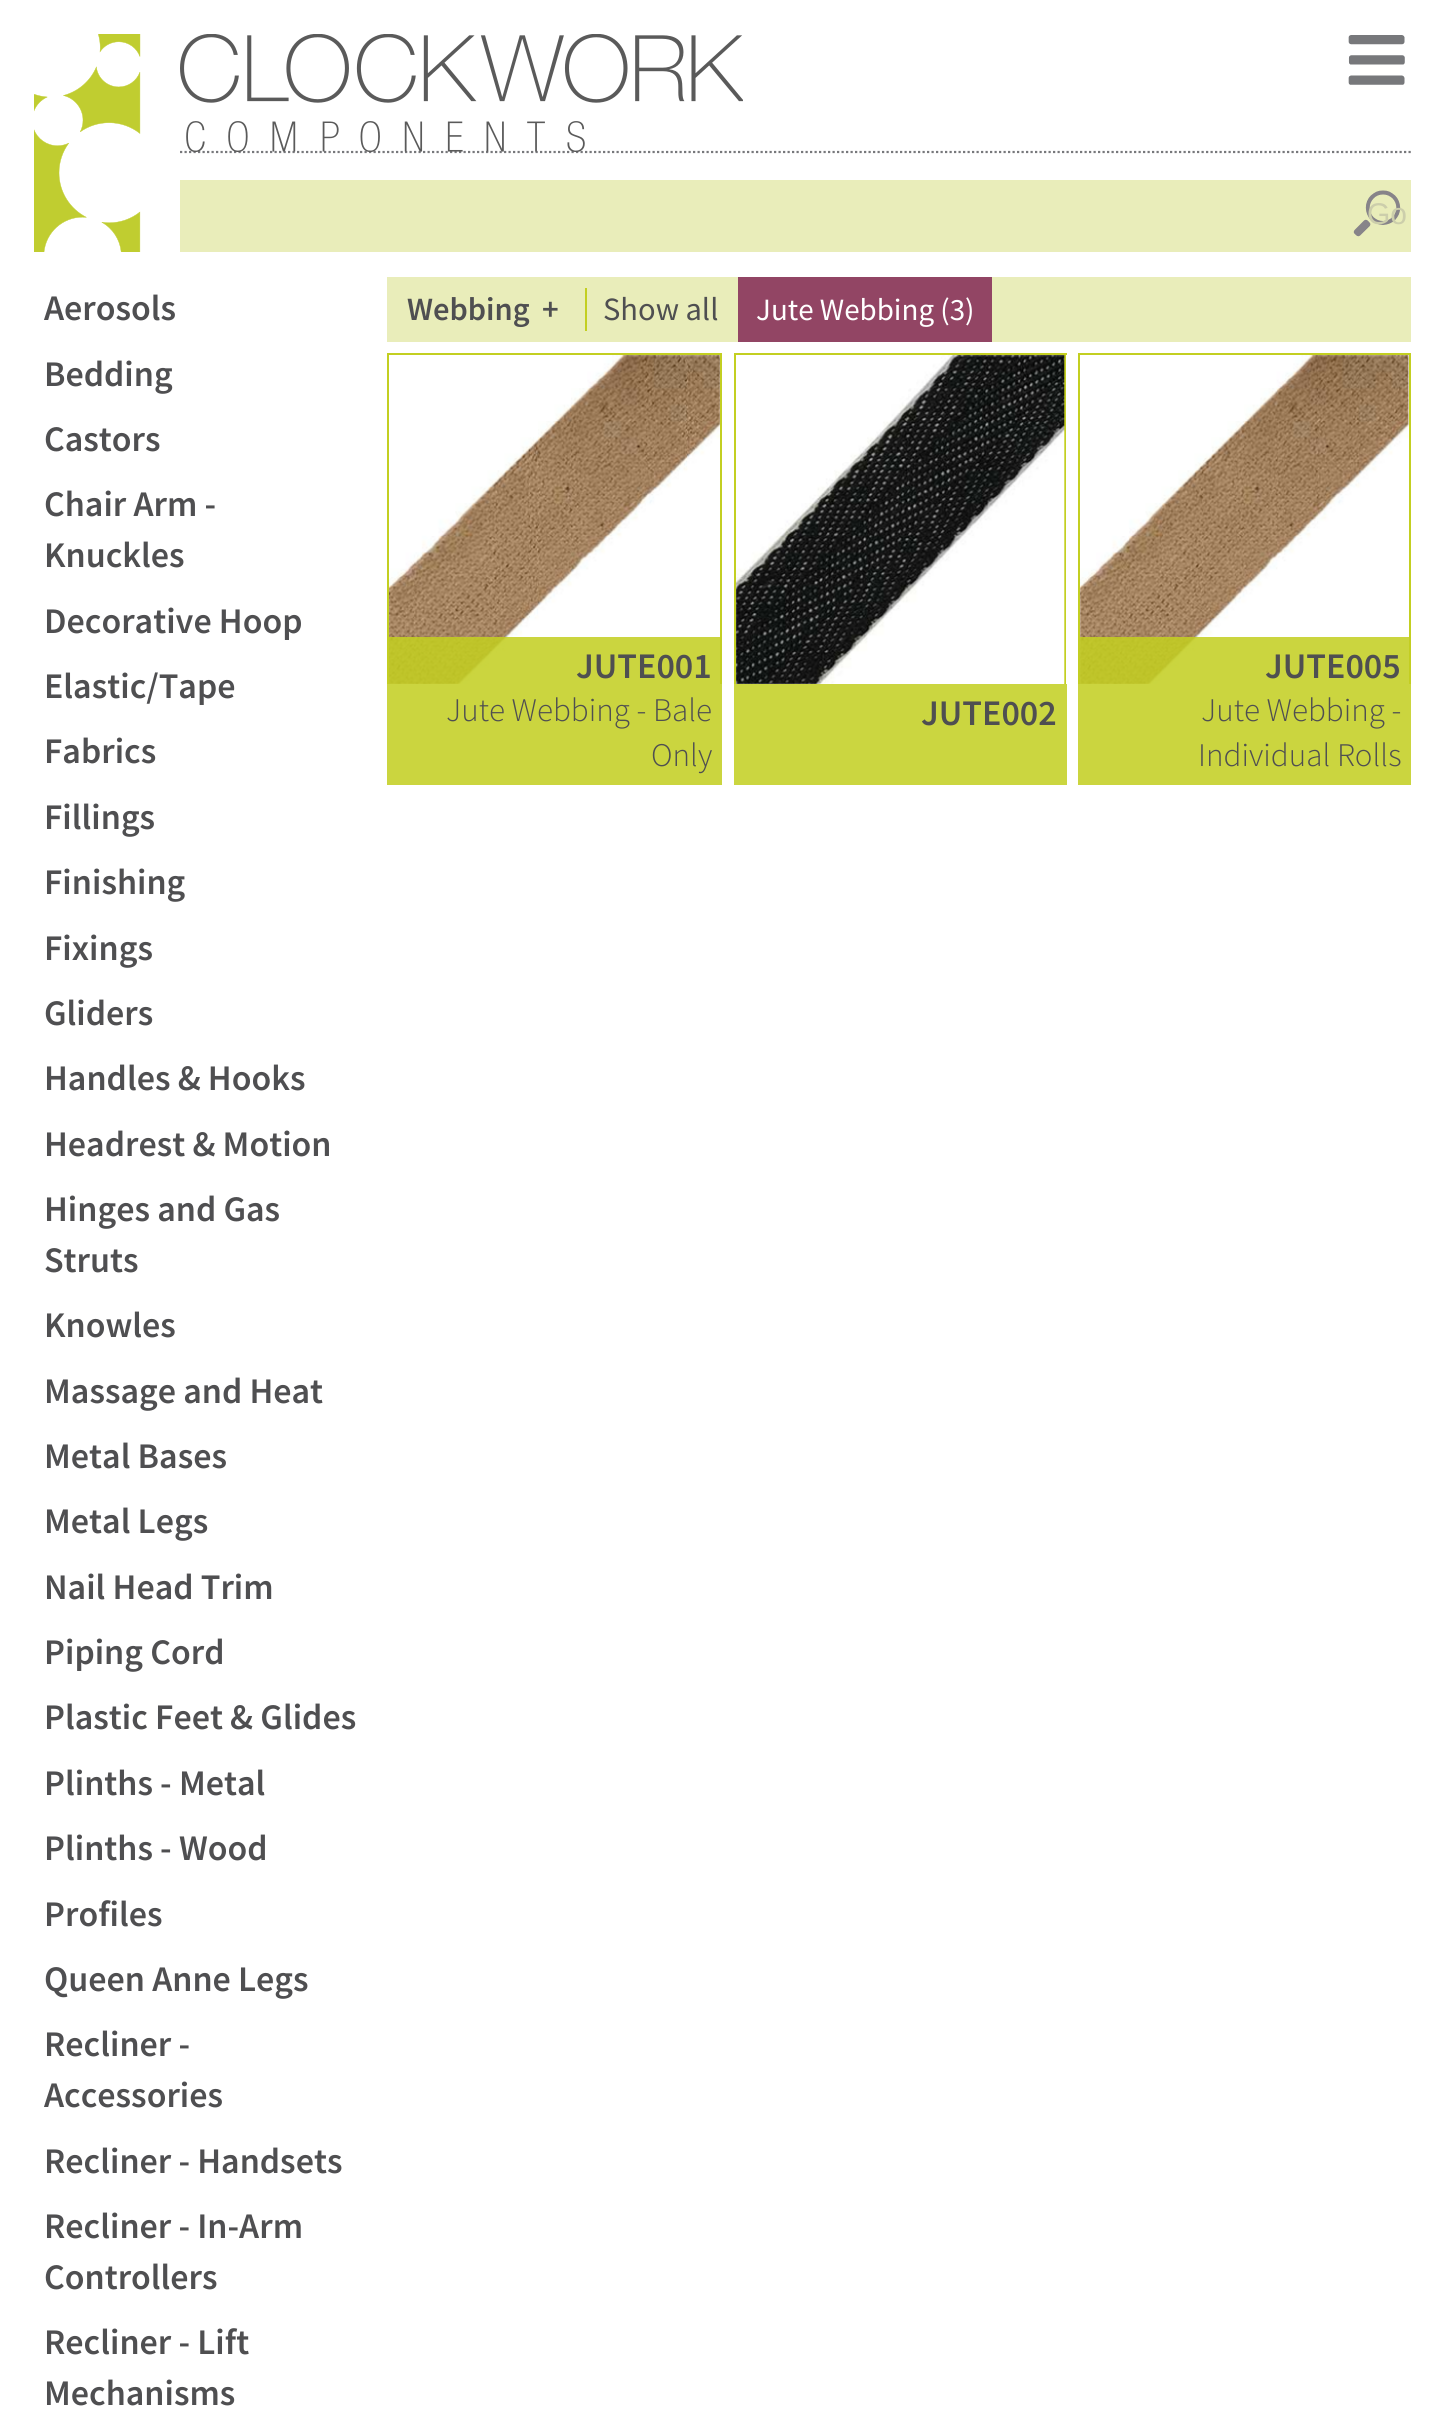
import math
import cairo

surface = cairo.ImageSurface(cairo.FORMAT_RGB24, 1443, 2434)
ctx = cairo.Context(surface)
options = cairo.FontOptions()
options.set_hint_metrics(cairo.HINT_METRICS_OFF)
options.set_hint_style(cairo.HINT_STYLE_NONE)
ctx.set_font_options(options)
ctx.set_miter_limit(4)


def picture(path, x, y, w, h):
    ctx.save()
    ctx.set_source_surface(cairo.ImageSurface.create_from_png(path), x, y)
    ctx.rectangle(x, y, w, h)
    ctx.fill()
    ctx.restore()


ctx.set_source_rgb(1, 1, 1)
ctx.paint()
picture("img1.png", 1348, 35, 57, 50)
picture("img2.png", 34, 34, 107, 218)
ctx.new_path()
ctx.move_to(180, 152)
ctx.line_to(1411, 152)
ctx.set_source_rgb(0.467, 0.471, 0.482)
ctx.set_line_width(2.2)
ctx.set_dash([2.25, 2.25])
ctx.stroke()
picture("img3.png", 180, 34, 563, 118)
ctx.set_source_rgb(0.914, 0.929, 0.729)
ctx.rectangle(180, 180, 1231, 72)
ctx.fill()
picture("img4.png", 1353, 190, 48, 47)
ctx.select_font_face("Liberation Sans")
ctx.set_font_size(30)
ctx.set_source_rgb(0.8, 0.808, 0.671)
ctx.move_to(1367, 224)
ctx.show_text("Go")
ctx.select_font_face("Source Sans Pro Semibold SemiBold")
ctx.set_font_size(36)
ctx.set_source_rgb(0.31, 0.31, 0.318)
ctx.move_to(44, 320)
ctx.show_text("Aerosols")
ctx.move_to(44, 386)
ctx.show_text("Bedding")
ctx.move_to(44, 451)
ctx.show_text("Castors")
ctx.move_to(44, 516)
ctx.show_text("Chair Arm -")
ctx.move_to(44, 567)
ctx.show_text("Knuckles")
ctx.move_to(44, 633)
ctx.show_text("Decorative Hoop")
ctx.move_to(44, 698)
ctx.show_text("Elastic/Tape")
ctx.move_to(44, 763)
ctx.show_text("Fabrics")
ctx.move_to(44, 829)
ctx.show_text("Fillings")
ctx.move_to(44, 894)
ctx.show_text("Finishing")
ctx.move_to(44, 960)
ctx.show_text("Fixings")
ctx.move_to(44, 1025)
ctx.show_text("Gliders")
ctx.move_to(44, 1090)
ctx.show_text("Handles & Hooks")
ctx.move_to(44, 1156)
ctx.show_text("Headrest & Motion")
ctx.move_to(44, 1221)
ctx.show_text("Hinges and Gas")
ctx.move_to(44, 1272)
ctx.show_text("Struts")
ctx.move_to(44, 1337)
ctx.show_text("Knowles")
ctx.move_to(44, 1403)
ctx.show_text("Massage and Heat")
ctx.move_to(44, 1468)
ctx.show_text("Metal Bases")
ctx.move_to(44, 1533)
ctx.show_text("Metal Legs")
ctx.move_to(44, 1599)
ctx.show_text("Nail Head Trim")
ctx.move_to(44, 1664)
ctx.show_text("Piping Cord")
ctx.move_to(44, 1729)
ctx.show_text("Plastic Feet & Glides")
ctx.move_to(44, 1795)
ctx.show_text("Plinths - Metal")
ctx.move_to(44, 1860)
ctx.show_text("Plinths - Wood")
ctx.move_to(44, 1926)
ctx.show_text("Profiles")
ctx.move_to(44, 1991)
ctx.show_text("Queen Anne Legs")
ctx.move_to(44, 2056)
ctx.show_text("Recliner -")
ctx.move_to(44, 2107)
ctx.show_text("Accessories")
ctx.move_to(44, 2173)
ctx.show_text("Recliner - Handsets")
ctx.move_to(44, 2238)
ctx.show_text("Recliner - In-Arm")
ctx.move_to(44, 2289)
ctx.show_text("Controllers")
ctx.move_to(44, 2354)
ctx.show_text("Recliner - Lift")
ctx.move_to(44, 2405)
ctx.show_text("Mechanisms")
ctx.set_source_rgb(0.914, 0.929, 0.729)
ctx.rectangle(387, 277, 1024, 65)
ctx.fill()
ctx.set_font_size(32.5)
ctx.set_source_rgb(0.31, 0.31, 0.318)
ctx.move_to(407, 320)
ctx.show_text("Webbing")
ctx.move_to(542, 320)
ctx.show_text("+")
ctx.set_source_rgb(0.765, 0.812, 0.129)
ctx.rectangle(585, 288, 2, 43)
ctx.fill()
ctx.select_font_face("Source Sans Pro")
ctx.set_source_rgb(0.31, 0.31, 0.318)
ctx.move_to(603, 320)
ctx.show_text("Show all")
ctx.set_source_rgb(0.573, 0.271, 0.392)
ctx.rectangle(738, 277, 254, 65)
ctx.fill()
ctx.set_font_size(31)
ctx.set_source_rgb(1, 1, 1)
ctx.move_to(756, 320)
ctx.show_text("Jute Webbing (3)")
ctx.set_source_rgb(0.765, 0.812, 0.129)
ctx.rectangle(387, 353, 335, 2)
ctx.fill()
ctx.rectangle(720, 353, 2, 331)
ctx.fill()
ctx.rectangle(387, 353, 2, 331)
ctx.fill()
picture("img5.png", 389, 355, 331, 329)
ctx.set_source_rgba(0.765, 0.812, 0.129, 0.86)
ctx.rectangle(387, 637, 335, 148)
ctx.fill()
ctx.select_font_face("Source Sans Pro Semibold SemiBold")
ctx.set_font_size(36)
ctx.set_source_rgb(0.31, 0.31, 0.318)
ctx.move_to(576, 678)
ctx.show_text("JUTE001")
ctx.select_font_face("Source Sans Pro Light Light")
ctx.set_font_size(33)
ctx.move_to(446, 721)
ctx.show_text("Jute Webbing - Bale")
ctx.move_to(651, 766)
ctx.show_text("Only")
ctx.set_source_rgb(0.765, 0.812, 0.129)
ctx.rectangle(734, 353, 333, 2)
ctx.fill()
ctx.rectangle(1064, 353, 2, 331)
ctx.fill()
ctx.rectangle(734, 353, 2, 331)
ctx.fill()
picture("img6.png", 736, 355, 329, 329)
ctx.set_source_rgb(0.796, 0.839, 0.251)
ctx.rectangle(734, 684, 333, 101)
ctx.fill()
ctx.select_font_face("Source Sans Pro Semibold SemiBold")
ctx.set_font_size(36)
ctx.set_source_rgb(0.31, 0.31, 0.318)
ctx.move_to(921, 725)
ctx.show_text("JUTE002")
ctx.set_source_rgb(0.765, 0.812, 0.129)
ctx.rectangle(1078, 353, 333, 2)
ctx.fill()
ctx.rectangle(1409, 353, 2, 331)
ctx.fill()
ctx.rectangle(1078, 353, 2, 331)
ctx.fill()
picture("img7.png", 1080, 355, 329, 329)
ctx.set_source_rgba(0.765, 0.812, 0.129, 0.86)
ctx.rectangle(1078, 637, 333, 148)
ctx.fill()
ctx.set_source_rgb(0.31, 0.31, 0.318)
ctx.move_to(1265, 678)
ctx.show_text("JUTE005")
ctx.select_font_face("Source Sans Pro Light Light")
ctx.set_font_size(33)
ctx.move_to(1201, 721)
ctx.show_text("Jute Webbing -")
ctx.move_to(1198, 766)
ctx.show_text("Individual Rolls")
surface.write_to_png("page.png")
